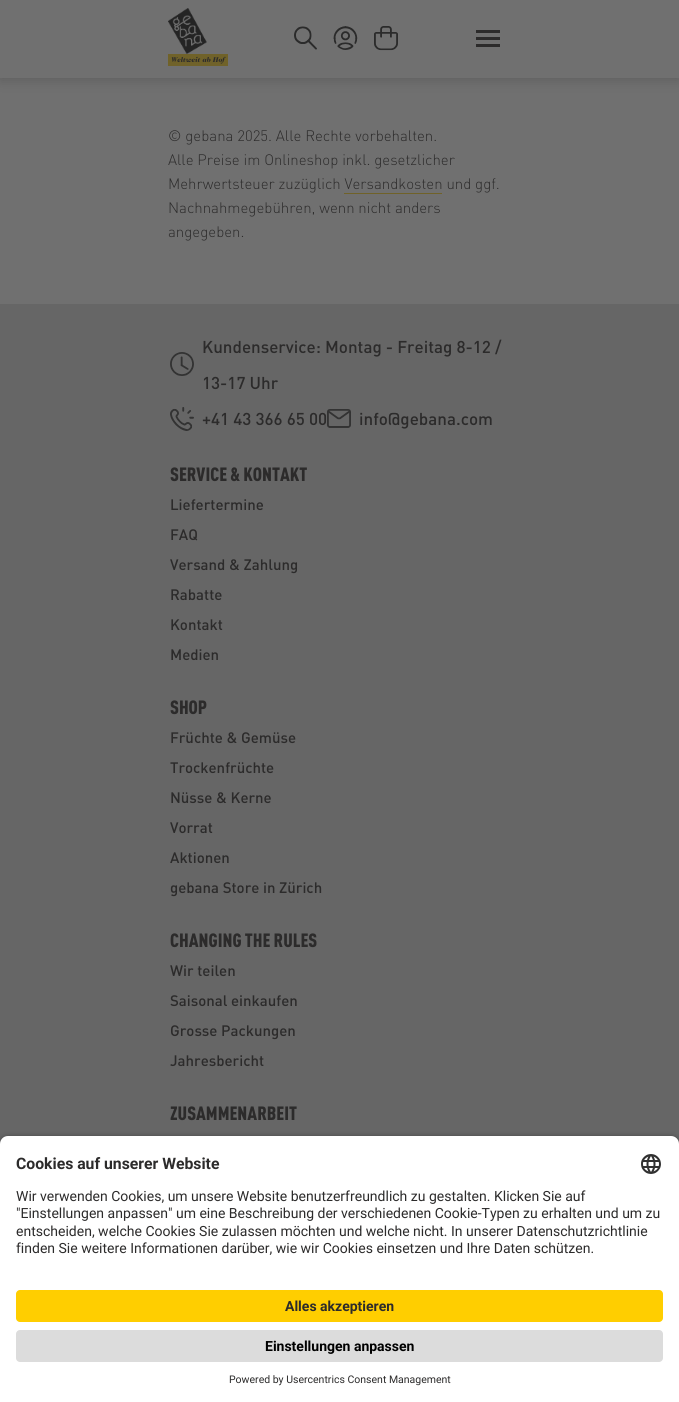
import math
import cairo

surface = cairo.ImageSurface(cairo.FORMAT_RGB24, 679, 1402)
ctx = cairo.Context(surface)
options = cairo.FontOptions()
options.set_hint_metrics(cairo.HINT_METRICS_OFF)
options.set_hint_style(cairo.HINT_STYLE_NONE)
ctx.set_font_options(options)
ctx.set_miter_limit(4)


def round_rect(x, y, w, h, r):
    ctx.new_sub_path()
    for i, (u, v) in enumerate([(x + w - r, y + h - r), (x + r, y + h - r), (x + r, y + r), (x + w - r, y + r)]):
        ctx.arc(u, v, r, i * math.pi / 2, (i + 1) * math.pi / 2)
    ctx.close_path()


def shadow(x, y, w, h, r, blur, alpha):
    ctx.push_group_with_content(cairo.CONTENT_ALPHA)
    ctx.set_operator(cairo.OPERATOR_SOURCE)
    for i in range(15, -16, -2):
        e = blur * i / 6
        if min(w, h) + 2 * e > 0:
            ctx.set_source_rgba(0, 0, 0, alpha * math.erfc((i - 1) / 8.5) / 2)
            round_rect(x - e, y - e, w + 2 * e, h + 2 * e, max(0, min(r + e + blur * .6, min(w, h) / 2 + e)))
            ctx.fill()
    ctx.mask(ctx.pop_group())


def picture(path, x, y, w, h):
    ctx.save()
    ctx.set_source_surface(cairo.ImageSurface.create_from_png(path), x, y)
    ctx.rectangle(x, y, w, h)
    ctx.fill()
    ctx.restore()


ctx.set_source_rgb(0.439, 0.439, 0.439)
ctx.paint()
ctx.set_source_rgb(0.345, 0.345, 0.345)
shadow(0, 2, 679, 78, 0, 6, 0.77)
ctx.set_source_rgb(0.439, 0.439, 0.439)
ctx.rectangle(0, 0, 679, 78)
ctx.fill()
picture("img1.png", 294, 26, 23, 24)
picture("img2.png", 333, 26, 25, 24)
picture("img3.png", 374, 26, 24, 25)
ctx.set_source_rgb(0.173, 0.169, 0.169)
ctx.rectangle(476, 30, 24, 3)
ctx.fill()
ctx.rectangle(476, 37, 24, 3)
ctx.fill()
ctx.rectangle(476, 44, 24, 3)
ctx.fill()
picture("img4.png", 168, 8, 39, 46)
ctx.set_source_rgb(0.439, 0.384, 0.161)
ctx.rectangle(168, 54, 60, 12)
ctx.fill()
ctx.select_font_face("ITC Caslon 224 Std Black", cairo.FONT_SLANT_ITALIC)
ctx.set_font_size(7)
ctx.set_source_rgb(0.173, 0.169, 0.169)
ctx.move_to(171, 62)
ctx.show_text("Weltweit ab Hof")
ctx.select_font_face("DIN Light")
ctx.set_font_size(15)
ctx.move_to(168, 141)
ctx.show_text("© gebana 2025. Alle Rechte vorbehalten.")
ctx.move_to(168, 165)
ctx.show_text("Alle Preise im Onlineshop inkl. gesetzlicher")
ctx.move_to(168, 189)
ctx.show_text("Mehrwertsteuer zuzüglich Versandkosten und ggf.")
ctx.set_source_rgb(0.439, 0.384, 0.161)
ctx.rectangle(344, 193, 98, 1)
ctx.fill()
ctx.set_source_rgb(0.173, 0.169, 0.169)
ctx.move_to(168, 213)
ctx.show_text("Nachnahmegebühren, wenn nicht anders")
ctx.move_to(168, 237)
ctx.show_text("angegeben.")
ctx.set_source_rgb(0.4, 0.4, 0.4)
ctx.rectangle(0, 304, 679, 840)
ctx.fill()
ctx.select_font_face("DIN Medium")
ctx.set_font_size(17)
ctx.set_source_rgb(0.173, 0.169, 0.169)
ctx.move_to(202, 353)
ctx.show_text("Kundenservice: Montag - Freitag 8-12 /")
picture("img5.png", 170, 352, 24, 24)
ctx.move_to(202, 389)
ctx.show_text("13-17 Uhr")
picture("img6.png", 170, 407, 24, 24)
ctx.move_to(202, 425)
ctx.show_text("+41 43 366 65 00")
picture("img7.png", 327, 409, 24, 19)
ctx.move_to(359, 425)
ctx.show_text("info@gebana.com")
ctx.select_font_face("DIN Black")
ctx.set_font_size(19)
ctx.move_to(170, 481)
ctx.show_text("SERVICE & KONTAKT")
ctx.select_font_face("DIN Medium")
ctx.set_font_size(15)
ctx.move_to(170, 510)
ctx.show_text("Liefertermine")
ctx.move_to(170, 540)
ctx.show_text("FAQ")
ctx.move_to(170, 570)
ctx.show_text("Versand & Zahlung")
ctx.move_to(170, 600)
ctx.show_text("Rabatte")
ctx.move_to(170, 630)
ctx.show_text("Kontakt")
ctx.move_to(170, 660)
ctx.show_text("Medien")
ctx.select_font_face("DIN Black")
ctx.set_font_size(19)
ctx.move_to(170, 714)
ctx.show_text("SHOP")
ctx.select_font_face("DIN Medium")
ctx.set_font_size(15)
ctx.move_to(170, 743)
ctx.show_text("Früchte & Gemüse")
ctx.move_to(170, 773)
ctx.show_text("Trockenfrüchte")
ctx.move_to(170, 803)
ctx.show_text("Nüsse & Kerne")
ctx.move_to(170, 833)
ctx.show_text("Vorrat")
ctx.move_to(170, 863)
ctx.show_text("Aktionen")
ctx.move_to(170, 893)
ctx.show_text("gebana Store in Zürich")
ctx.select_font_face("DIN Black")
ctx.set_font_size(19)
ctx.move_to(170, 947)
ctx.show_text("CHANGING THE RULES")
ctx.select_font_face("DIN Medium")
ctx.set_font_size(15)
ctx.move_to(170, 976)
ctx.show_text("Wir teilen")
ctx.move_to(170, 1006)
ctx.show_text("Saisonal einkaufen")
ctx.move_to(170, 1036)
ctx.show_text("Grosse Packungen")
ctx.move_to(170, 1066)
ctx.show_text("Jahresbericht")
ctx.select_font_face("DIN Black")
ctx.set_font_size(19)
ctx.move_to(170, 1120)
ctx.show_text("ZUSAMMENARBEIT")
ctx.set_source_rgb(0, 0, 0)
shadow(0, 1139, 679, 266, 8, 3.5, 0.8)
ctx.set_source_rgb(1, 1, 1)
ctx.new_path()
ctx.move_to(8, 1136)
ctx.line_to(671, 1136)
ctx.curve_to(675.5, 1136, 679, 1139.5, 679, 1144)
ctx.line_to(679, 1278)
ctx.line_to(0, 1278)
ctx.line_to(0, 1144)
ctx.curve_to(0, 1139.5, 3.5, 1136, 8, 1136)
ctx.close_path()
ctx.fill()
ctx.select_font_face("Roboto", cairo.FONT_SLANT_NORMAL, cairo.FONT_WEIGHT_BOLD)
ctx.set_font_size(15.75)
ctx.set_source_rgb(0.173, 0.169, 0.169)
ctx.move_to(16, 1169)
ctx.show_text("Cookies auf unserer Website")
picture("img8.png", 641, 1154, 20, 20)
ctx.select_font_face("Roboto")
ctx.set_font_size(14)
ctx.move_to(16, 1201)
ctx.show_text("Wir verwenden Cookies, um unsere Website benutzerfreundlich zu gestalten. Klicken Sie auf")
ctx.move_to(16, 1218)
ctx.show_text("\"Einstellungen anpassen\" um eine Beschreibung der verschiedenen Cookie-Typen zu erhalten und um zu")
ctx.move_to(16, 1236)
ctx.show_text("entscheiden, welche Cookies Sie zulassen möchten und welche nicht. In unserer Datenschutzrichtlinie")
ctx.move_to(16, 1253)
ctx.show_text("finden Sie weitere Informationen darüber, wie wir Cookies einsetzen und Ihre Daten schützen.")
ctx.set_source_rgb(1, 1, 1)
ctx.rectangle(0, 1278, 679, 124)
ctx.fill()
ctx.set_source_rgb(1, 0.808, 0)
round_rect(16, 1290, 647, 32, 4)
ctx.fill()
ctx.select_font_face("Roboto", cairo.FONT_SLANT_NORMAL, cairo.FONT_WEIGHT_BOLD)
ctx.set_source_rgb(0.173, 0.169, 0.169)
ctx.move_to(285, 1311)
ctx.show_text("Alles akzeptieren")
ctx.set_source_rgb(0.863, 0.863, 0.863)
round_rect(16, 1330, 647, 32, 4)
ctx.fill()
ctx.set_source_rgb(0, 0, 0)
ctx.move_to(265, 1351)
ctx.show_text("Einstellungen anpassen")
ctx.select_font_face("Roboto")
ctx.set_font_size(10.5)
ctx.set_source_rgb(0.173, 0.169, 0.169)
ctx.move_to(229, 1383)
ctx.show_text("Powered by Usercentrics Consent Management")
surface.write_to_png("page.png")
